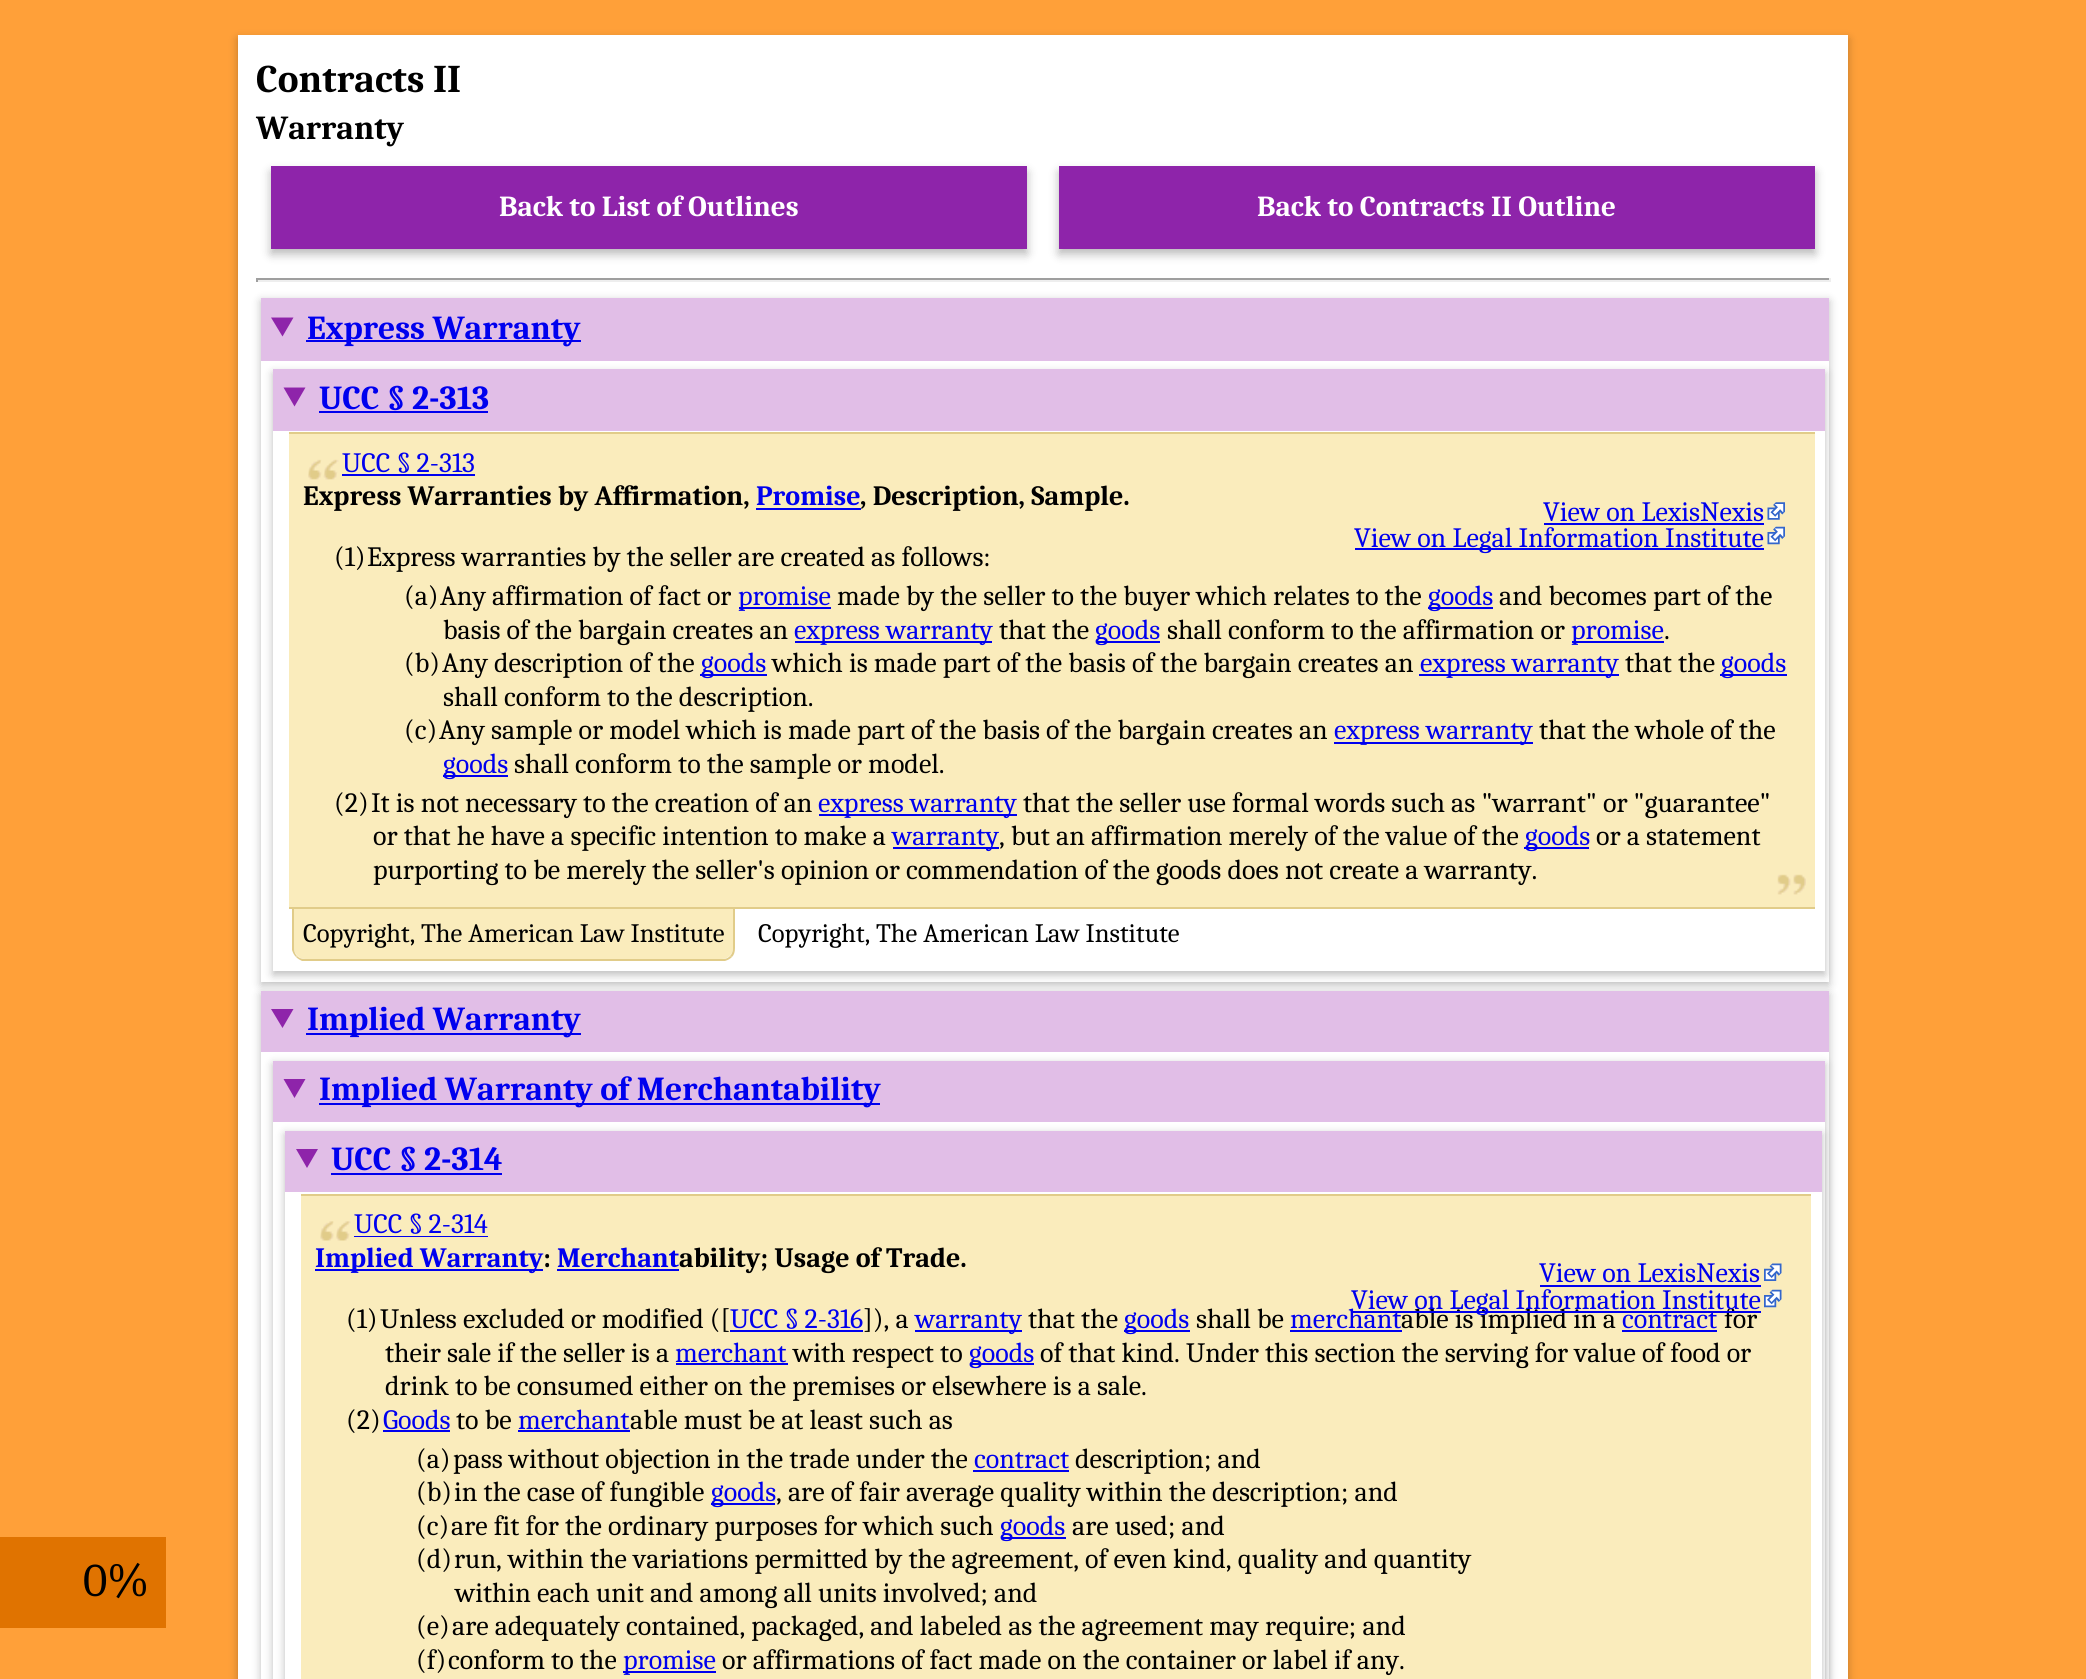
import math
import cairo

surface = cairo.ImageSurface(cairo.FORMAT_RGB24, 2086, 1679)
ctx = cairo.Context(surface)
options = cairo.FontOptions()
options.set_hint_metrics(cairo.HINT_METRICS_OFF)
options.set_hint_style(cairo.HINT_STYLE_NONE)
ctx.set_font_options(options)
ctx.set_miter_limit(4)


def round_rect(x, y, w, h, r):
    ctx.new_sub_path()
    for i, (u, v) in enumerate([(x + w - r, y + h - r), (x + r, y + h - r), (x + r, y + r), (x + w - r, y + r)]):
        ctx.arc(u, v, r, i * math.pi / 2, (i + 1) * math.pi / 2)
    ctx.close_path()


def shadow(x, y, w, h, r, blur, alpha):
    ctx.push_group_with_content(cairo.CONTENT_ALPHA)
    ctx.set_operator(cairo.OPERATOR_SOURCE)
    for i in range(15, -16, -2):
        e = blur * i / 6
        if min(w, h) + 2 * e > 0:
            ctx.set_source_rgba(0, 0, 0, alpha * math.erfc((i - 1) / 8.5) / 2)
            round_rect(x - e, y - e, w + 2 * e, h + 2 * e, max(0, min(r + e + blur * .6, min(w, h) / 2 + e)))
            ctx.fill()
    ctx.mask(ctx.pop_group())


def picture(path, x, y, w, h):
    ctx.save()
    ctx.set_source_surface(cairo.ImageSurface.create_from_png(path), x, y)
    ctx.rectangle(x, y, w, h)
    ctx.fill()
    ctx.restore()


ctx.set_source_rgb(1, 0.627, 0.224)
ctx.paint()
ctx.set_source_rgb(0.878, 0.451, 0)
ctx.rectangle(0, 1537, 166, 91)
ctx.fill()
ctx.select_font_face("Caladea")
ctx.set_font_size(47)
ctx.set_source_rgb(0, 0, 0)
ctx.move_to(83, 1596)
ctx.show_text("0%")
ctx.set_source_rgb(0, 0, 0)
shadow(238, 39, 1610, 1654, 0, 4.5, 0.26)
ctx.set_source_rgb(1, 1, 1)
ctx.rectangle(238, 35, 1610, 1644)
ctx.fill()
ctx.select_font_face("Caladea", cairo.FONT_SLANT_NORMAL, cairo.FONT_WEIGHT_BOLD)
ctx.set_font_size(39.25)
ctx.set_source_rgb(0, 0, 0)
ctx.move_to(256, 92)
ctx.show_text("Contracts II")
ctx.set_font_size(33.6)
ctx.move_to(256, 139)
ctx.show_text("Warranty")
ctx.set_source_rgb(0, 0, 0)
shadow(271, 172, 756, 82, 0, 5, 0.28)
ctx.set_source_rgb(0.557, 0.141, 0.667)
ctx.rectangle(271, 166, 756, 83)
ctx.fill()
ctx.set_font_size(29.1)
ctx.set_source_rgb(1, 1, 1)
ctx.move_to(499, 216)
ctx.show_text("Back to List of Outlines")
ctx.set_source_rgb(0, 0, 0)
shadow(1059, 172, 756, 82, 0, 5, 0.28)
ctx.set_source_rgb(0.557, 0.141, 0.667)
ctx.rectangle(1059, 166, 756, 83)
ctx.fill()
ctx.set_source_rgb(1, 1, 1)
ctx.move_to(1257, 216)
ctx.show_text("Back to Contracts II Outline")
ctx.set_source_rgb(0.624, 0.624, 0.624)
ctx.rectangle(256, 278, 1575, 2)
ctx.fill()
ctx.set_source_rgb(0.933, 0.933, 0.933)
ctx.rectangle(1829, 278, 2, 4)
ctx.fill()
ctx.rectangle(256, 280, 1575, 2)
ctx.fill()
ctx.set_source_rgb(0.624, 0.624, 0.624)
ctx.rectangle(256, 278, 2, 4)
ctx.fill()
ctx.save()
ctx.set_fill_rule(cairo.FILL_RULE_EVEN_ODD)
ctx.new_path()
ctx.move_to(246, 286)
ctx.line_to(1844, 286)
ctx.line_to(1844, 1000)
ctx.line_to(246, 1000)
ctx.close_path()
ctx.move_to(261, 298)
ctx.line_to(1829, 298)
ctx.line_to(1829, 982)
ctx.line_to(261, 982)
ctx.close_path()
ctx.clip()
ctx.set_source_rgb(0, 0, 0)
shadow(261, 301, 1568, 684, 0, 4.5, 0.26)
ctx.restore()
ctx.set_source_rgb(0.882, 0.745, 0.906)
ctx.rectangle(261, 298, 1568, 63)
ctx.fill()
ctx.set_source_rgb(0.557, 0.141, 0.667)
ctx.new_path()
ctx.move_to(271, 317.5)
ctx.line_to(293.5, 317.5)
ctx.line_to(282.5, 336.5)
ctx.close_path()
ctx.fill()
ctx.set_source_rgb(0, 0, 0.933)
ctx.rectangle(306, 340, 275, 2)
ctx.fill()
ctx.set_font_size(33.6)
ctx.move_to(307, 339)
ctx.show_text("Express Warranty")
ctx.save()
ctx.set_fill_rule(cairo.FILL_RULE_EVEN_ODD)
ctx.new_path()
ctx.move_to(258, 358)
ctx.line_to(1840, 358)
ctx.line_to(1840, 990)
ctx.line_to(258, 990)
ctx.close_path()
ctx.move_to(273, 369)
ctx.line_to(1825, 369)
ctx.line_to(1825, 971)
ctx.line_to(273, 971)
ctx.close_path()
ctx.clip()
ctx.set_source_rgb(0, 0, 0)
shadow(273, 373, 1552, 602, 0, 4.5, 0.26)
ctx.restore()
ctx.set_source_rgb(0.882, 0.745, 0.906)
ctx.rectangle(273, 369, 1552, 62)
ctx.fill()
ctx.set_source_rgb(0.557, 0.141, 0.667)
ctx.new_path()
ctx.move_to(283.5, 387.5)
ctx.line_to(305.5, 387.5)
ctx.line_to(294.5, 406.5)
ctx.close_path()
ctx.fill()
ctx.set_source_rgb(0, 0, 0.933)
ctx.move_to(319, 409)
ctx.show_text("UCC § 2-313")
ctx.rectangle(319, 411, 169, 2)
ctx.fill()
ctx.set_source_rgb(0.98, 0.922, 0.737)
ctx.new_path()
ctx.move_to(294, 908)
ctx.line_to(733, 908)
ctx.line_to(733, 948)
ctx.curve_to(733, 954, 728, 959, 722, 959)
ctx.line_to(305, 959)
ctx.curve_to(299, 959, 294, 954, 294, 948)
ctx.close_path()
ctx.fill()
ctx.set_source_rgb(0.882, 0.8, 0.537)
ctx.new_path()
ctx.move_to(735, 948)
ctx.line_to(735, 905)
ctx.line_to(733, 909)
ctx.line_to(733, 948)
ctx.curve_to(733, 951, 732, 954, 730, 956)
ctx.line_to(732, 957)
ctx.curve_to(734, 955, 735, 952, 735, 948)
ctx.close_path()
ctx.fill()
ctx.new_path()
ctx.move_to(302, 961)
ctx.curve_to(300, 960, 298, 959, 296, 957)
ctx.line_to(297, 956)
ctx.curve_to(299, 958, 302, 959, 304, 959)
ctx.line_to(723, 959)
ctx.curve_to(726, 959, 728, 958, 730, 956)
ctx.line_to(732, 957)
ctx.curve_to(730, 959, 728, 960, 725, 961)
ctx.close_path()
ctx.fill()
ctx.new_path()
ctx.move_to(292, 905)
ctx.line_to(294, 908)
ctx.line_to(294, 948)
ctx.curve_to(294, 951, 295, 954, 297, 956)
ctx.line_to(296, 957)
ctx.curve_to(294, 955, 293, 953, 292, 950)
ctx.close_path()
ctx.fill()
ctx.set_source_rgb(0.98, 0.922, 0.737)
ctx.rectangle(289, 434, 1526, 473)
ctx.fill()
picture("img1.png", 1777, 874, 29, 21)
ctx.set_source_rgb(0.882, 0.8, 0.537)
ctx.rectangle(289, 432, 1526, 2)
ctx.fill()
ctx.rectangle(289, 907, 1526, 2)
ctx.fill()
picture("img2.png", 308, 459, 31, 21)
ctx.select_font_face("Caladea")
ctx.set_font_size(28)
ctx.set_source_rgb(0, 0, 0.933)
ctx.move_to(342, 472)
ctx.show_text("UCC § 2-313")
ctx.rectangle(342, 474, 133, 2)
ctx.fill()
ctx.select_font_face("Caladea", cairo.FONT_SLANT_NORMAL, cairo.FONT_WEIGHT_BOLD)
ctx.set_source_rgb(0, 0, 0)
ctx.move_to(303, 505)
ctx.show_text("Express Warranties by Affirmation,")
ctx.set_source_rgb(0, 0, 0.933)
ctx.move_to(756, 505)
ctx.show_text("Promise")
ctx.rectangle(756, 508, 105, 2)
ctx.fill()
ctx.set_source_rgb(0, 0, 0)
ctx.move_to(860, 505)
ctx.show_text(", Description, Sample.")
ctx.select_font_face("Caladea")
ctx.set_source_rgb(0, 0, 0.933)
ctx.move_to(1543, 521)
ctx.show_text("View on LexisNexis")
ctx.rectangle(1544, 523, 220, 2)
ctx.fill()
picture("img3.png", 1767, 502, 18, 18)
ctx.rectangle(1355, 548, 409, 2)
ctx.fill()
ctx.move_to(1354, 547)
ctx.show_text("View on Legal Information Institute")
picture("img4.png", 1767, 526, 18, 19)
ctx.set_source_rgb(0, 0, 0)
ctx.move_to(334, 566)
ctx.show_text("(1)")
ctx.move_to(367, 566)
ctx.show_text("Express warranties by the seller are created as follows:")
ctx.move_to(404, 605)
ctx.show_text("(a)")
ctx.move_to(440, 605)
ctx.show_text("Any affirmation of fact or")
ctx.set_source_rgb(0, 0, 0.933)
ctx.rectangle(739, 607, 92, 2)
ctx.fill()
ctx.move_to(738, 605)
ctx.show_text("promise")
ctx.set_source_rgb(0, 0, 0)
ctx.move_to(837, 605)
ctx.show_text("made by the seller to the buyer which relates to the")
ctx.set_source_rgb(0, 0, 0.933)
ctx.rectangle(1428, 607, 65, 2)
ctx.fill()
ctx.move_to(1428, 605)
ctx.show_text("goods")
ctx.set_source_rgb(0, 0, 0)
ctx.move_to(1499, 605)
ctx.show_text("and becomes part of the")
ctx.move_to(443, 639)
ctx.show_text("basis of the bargain creates an")
ctx.set_source_rgb(0, 0, 0.933)
ctx.rectangle(795, 641, 197, 2)
ctx.fill()
ctx.move_to(794, 639)
ctx.show_text("express warranty")
ctx.set_source_rgb(0, 0, 0)
ctx.move_to(999, 639)
ctx.show_text("that the")
ctx.set_source_rgb(0, 0, 0.933)
ctx.rectangle(1096, 641, 64, 2)
ctx.fill()
ctx.move_to(1095, 639)
ctx.show_text("goods")
ctx.set_source_rgb(0, 0, 0)
ctx.move_to(1167, 639)
ctx.show_text("shall conform to the affirmation or")
ctx.set_source_rgb(0, 0, 0.933)
ctx.rectangle(1572, 641, 92, 2)
ctx.fill()
ctx.move_to(1571, 639)
ctx.show_text("promise")
ctx.set_source_rgb(0, 0, 0)
ctx.move_to(1664, 639)
ctx.show_text(".")
ctx.move_to(404, 672)
ctx.show_text("(b)")
ctx.move_to(442, 672)
ctx.show_text("Any description of the")
ctx.set_source_rgb(0, 0, 0.933)
ctx.rectangle(700, 674, 67, 2)
ctx.fill()
ctx.move_to(701, 672)
ctx.show_text("goods")
ctx.set_source_rgb(0, 0, 0)
ctx.move_to(772, 672)
ctx.show_text("which is made part of the basis of the bargain creates an")
ctx.set_source_rgb(0, 0, 0.933)
ctx.rectangle(1419, 674, 200, 2)
ctx.fill()
ctx.move_to(1420, 672)
ctx.show_text("express warranty")
ctx.set_source_rgb(0, 0, 0)
ctx.move_to(1625, 672)
ctx.show_text("that the")
ctx.set_source_rgb(0, 0, 0.933)
ctx.rectangle(1720, 674, 67, 2)
ctx.fill()
ctx.move_to(1721, 672)
ctx.show_text("goods")
ctx.set_source_rgb(0, 0, 0)
ctx.move_to(443, 706)
ctx.show_text("shall conform to the description.")
ctx.move_to(404, 739)
ctx.show_text("(c)")
ctx.move_to(439, 739)
ctx.show_text("Any sample or model which is made part of the basis of the bargain creates an")
ctx.set_source_rgb(0, 0, 0.933)
ctx.rectangle(1334, 742, 199, 2)
ctx.fill()
ctx.move_to(1334, 739)
ctx.show_text("express warranty")
ctx.set_source_rgb(0, 0, 0)
ctx.move_to(1539, 739)
ctx.show_text("that the whole of the")
ctx.set_source_rgb(0, 0, 0.933)
ctx.rectangle(443, 775, 65, 2)
ctx.fill()
ctx.move_to(443, 773)
ctx.show_text("goods")
ctx.set_source_rgb(0, 0, 0)
ctx.move_to(514, 773)
ctx.show_text("shall conform to the sample or model.")
ctx.move_to(334, 812)
ctx.show_text("(2)")
ctx.move_to(371, 812)
ctx.show_text("It is not necessary to the creation of an")
ctx.set_source_rgb(0, 0, 0.933)
ctx.rectangle(819, 814, 198, 2)
ctx.fill()
ctx.move_to(818, 812)
ctx.show_text("express warranty")
ctx.set_source_rgb(0, 0, 0)
ctx.move_to(1023, 812)
ctx.show_text("that the seller use formal words such as \"warrant\" or \"guarantee\"")
ctx.move_to(373, 845)
ctx.show_text("or that he have a specific intention to make a")
ctx.set_source_rgb(0, 0, 0.933)
ctx.rectangle(893, 847, 106, 2)
ctx.fill()
ctx.move_to(892, 845)
ctx.show_text("warranty")
ctx.set_source_rgb(0, 0, 0)
ctx.move_to(999, 845)
ctx.show_text(", but an affirmation merely of the value of the")
ctx.set_source_rgb(0, 0, 0.933)
ctx.rectangle(1524, 847, 65, 2)
ctx.fill()
ctx.move_to(1525, 845)
ctx.show_text("goods")
ctx.set_source_rgb(0, 0, 0)
ctx.move_to(1596, 845)
ctx.show_text("or a statement")
ctx.move_to(373, 879)
ctx.show_text("purporting to be merely the seller's opinion or commendation of the goods does not create a warranty.")
ctx.set_font_size(26.6)
ctx.move_to(303, 942)
ctx.show_text("Copyright, The American Law Institute")
ctx.move_to(758, 942)
ctx.show_text("Copyright, The American Law Institute")
ctx.save()
ctx.set_fill_rule(cairo.FILL_RULE_EVEN_ODD)
ctx.new_path()
ctx.move_to(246, 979)
ctx.line_to(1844, 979)
ctx.line_to(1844, 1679)
ctx.line_to(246, 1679)
ctx.close_path()
ctx.move_to(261, 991)
ctx.line_to(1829, 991)
ctx.line_to(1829, 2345)
ctx.line_to(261, 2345)
ctx.close_path()
ctx.clip()
ctx.set_source_rgb(0, 0, 0)
shadow(261, 994, 1568, 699, 0, 4.5, 0.26)
ctx.restore()
ctx.set_source_rgb(0.882, 0.745, 0.906)
ctx.rectangle(261, 991, 1568, 61)
ctx.fill()
ctx.set_source_rgb(0.557, 0.141, 0.667)
ctx.new_path()
ctx.move_to(271, 1009)
ctx.line_to(293.5, 1009)
ctx.line_to(282.5, 1028)
ctx.close_path()
ctx.fill()
ctx.set_source_rgb(0, 0, 0.933)
ctx.rectangle(306, 1033, 275, 2)
ctx.fill()
ctx.select_font_face("Caladea", cairo.FONT_SLANT_NORMAL, cairo.FONT_WEIGHT_BOLD)
ctx.set_font_size(33.6)
ctx.move_to(307, 1030)
ctx.show_text("Implied Warranty")
ctx.save()
ctx.set_fill_rule(cairo.FILL_RULE_EVEN_ODD)
ctx.new_path()
ctx.move_to(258, 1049)
ctx.line_to(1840, 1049)
ctx.line_to(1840, 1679)
ctx.line_to(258, 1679)
ctx.close_path()
ctx.move_to(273, 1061)
ctx.line_to(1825, 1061)
ctx.line_to(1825, 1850)
ctx.line_to(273, 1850)
ctx.close_path()
ctx.clip()
ctx.set_source_rgb(0, 0, 0)
shadow(273, 1064, 1552, 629, 0, 4.5, 0.26)
ctx.restore()
ctx.set_source_rgb(0.882, 0.745, 0.906)
ctx.rectangle(273, 1061, 1552, 61)
ctx.fill()
ctx.set_source_rgb(0.557, 0.141, 0.667)
ctx.new_path()
ctx.move_to(283.5, 1079)
ctx.line_to(305.5, 1079)
ctx.line_to(294.5, 1098)
ctx.close_path()
ctx.fill()
ctx.set_source_rgb(0, 0, 0.933)
ctx.rectangle(319, 1103, 561, 2)
ctx.fill()
ctx.move_to(319, 1100)
ctx.show_text("Implied Warranty of Merchantability")
ctx.save()
ctx.set_fill_rule(cairo.FILL_RULE_EVEN_ODD)
ctx.new_path()
ctx.move_to(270, 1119)
ctx.line_to(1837, 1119)
ctx.line_to(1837, 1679)
ctx.line_to(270, 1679)
ctx.close_path()
ctx.move_to(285, 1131)
ctx.line_to(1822, 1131)
ctx.line_to(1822, 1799)
ctx.line_to(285, 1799)
ctx.close_path()
ctx.clip()
ctx.set_source_rgb(0, 0, 0)
shadow(285, 1134, 1537, 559, 0, 4.5, 0.26)
ctx.restore()
ctx.set_source_rgb(0.882, 0.745, 0.906)
ctx.rectangle(285, 1131, 1537, 61)
ctx.fill()
ctx.set_source_rgb(0.557, 0.141, 0.667)
ctx.new_path()
ctx.move_to(296, 1149)
ctx.line_to(318, 1149)
ctx.line_to(307, 1168)
ctx.close_path()
ctx.fill()
ctx.set_source_rgb(0, 0, 0.933)
ctx.move_to(331, 1170)
ctx.show_text("UCC § 2-314")
ctx.rectangle(331, 1173, 171, 2)
ctx.fill()
ctx.set_source_rgb(0.98, 0.922, 0.737)
ctx.rectangle(301, 1196, 1510, 483)
ctx.fill()
ctx.set_source_rgb(0.882, 0.8, 0.537)
ctx.rectangle(301, 1194, 1510, 2)
ctx.fill()
picture("img5.png", 320, 1221, 31, 20)
ctx.select_font_face("Caladea")
ctx.set_font_size(28)
ctx.set_source_rgb(0, 0, 0.933)
ctx.move_to(354, 1233)
ctx.show_text("UCC § 2-314")
ctx.rectangle(354, 1236, 134, 1)
ctx.fill()
ctx.rectangle(315, 1269, 228, 2)
ctx.fill()
ctx.select_font_face("Caladea", cairo.FONT_SLANT_NORMAL, cairo.FONT_WEIGHT_BOLD)
ctx.move_to(315, 1267)
ctx.show_text("Implied Warranty")
ctx.set_source_rgb(0, 0, 0)
ctx.move_to(543, 1267)
ctx.show_text(":")
ctx.set_source_rgb(0, 0, 0.933)
ctx.move_to(557, 1267)
ctx.show_text("Merchant")
ctx.rectangle(557, 1269, 122, 2)
ctx.fill()
ctx.set_source_rgb(0, 0, 0)
ctx.move_to(679, 1267)
ctx.show_text("ability; Usage of Trade.")
ctx.select_font_face("Caladea")
ctx.set_source_rgb(0, 0, 0.933)
ctx.move_to(1539, 1282)
ctx.show_text("View on LexisNexis")
ctx.rectangle(1540, 1285, 221, 2)
ctx.fill()
picture("img6.png", 1764, 1263, 18, 18)
ctx.rectangle(1290, 1330, 112, 2)
ctx.fill()
ctx.set_source_rgb(0, 0, 0)
ctx.move_to(1401, 1328)
ctx.show_text("able is implied in a")
ctx.move_to(1724, 1328)
ctx.show_text("for")
ctx.set_source_rgb(0, 0, 0.933)
ctx.rectangle(1351, 1311, 410, 2)
ctx.fill()
ctx.move_to(1351, 1309)
ctx.show_text("View on Legal Information Institute")
picture("img7.png", 1764, 1289, 18, 19)
ctx.set_source_rgb(0, 0, 0)
ctx.move_to(346, 1328)
ctx.show_text("(1)")
ctx.move_to(380, 1328)
ctx.show_text("Unless excluded or modified ([")
ctx.set_source_rgb(0, 0, 0.933)
ctx.move_to(730, 1328)
ctx.show_text("UCC § 2-316")
ctx.rectangle(730, 1330, 133, 2)
ctx.fill()
ctx.set_source_rgb(0, 0, 0)
ctx.move_to(863, 1328)
ctx.show_text("]), a")
ctx.set_source_rgb(0, 0, 0.933)
ctx.rectangle(915, 1330, 107, 2)
ctx.fill()
ctx.move_to(915, 1328)
ctx.show_text("warranty")
ctx.set_source_rgb(0, 0, 0)
ctx.move_to(1028, 1328)
ctx.show_text("that the")
ctx.set_source_rgb(0, 0, 0.933)
ctx.rectangle(1124, 1330, 66, 2)
ctx.fill()
ctx.move_to(1124, 1328)
ctx.show_text("goods")
ctx.set_source_rgb(0, 0, 0)
ctx.move_to(1196, 1328)
ctx.show_text("shall be")
ctx.set_source_rgb(0, 0, 0.933)
ctx.move_to(1290, 1328)
ctx.show_text("merchant")
ctx.move_to(1622, 1328)
ctx.show_text("contract")
ctx.rectangle(1622, 1330, 95, 2)
ctx.fill()
ctx.set_source_rgb(0, 0, 0)
ctx.move_to(385, 1362)
ctx.show_text("their sale if the seller is a")
ctx.set_source_rgb(0, 0, 0.933)
ctx.move_to(675, 1362)
ctx.show_text("merchant")
ctx.rectangle(676, 1363, 112, 2)
ctx.fill()
ctx.set_source_rgb(0, 0, 0)
ctx.move_to(793, 1362)
ctx.show_text("with respect to")
ctx.set_source_rgb(0, 0, 0.933)
ctx.rectangle(970, 1363, 64, 2)
ctx.fill()
ctx.move_to(969, 1362)
ctx.show_text("goods")
ctx.set_source_rgb(0, 0, 0)
ctx.move_to(1040, 1362)
ctx.show_text("of that kind. Under this section the serving for value of food or")
ctx.move_to(385, 1395)
ctx.show_text("drink to be consumed either on the premises or elsewhere is a sale.")
ctx.move_to(346, 1429)
ctx.show_text("(2)")
ctx.set_source_rgb(0, 0, 0.933)
ctx.move_to(383, 1429)
ctx.show_text("Goods")
ctx.rectangle(383, 1430, 67, 2)
ctx.fill()
ctx.set_source_rgb(0, 0, 0)
ctx.move_to(456, 1429)
ctx.show_text("to be")
ctx.set_source_rgb(0, 0, 0.933)
ctx.move_to(518, 1429)
ctx.show_text("merchant")
ctx.rectangle(518, 1430, 112, 2)
ctx.fill()
ctx.set_source_rgb(0, 0, 0)
ctx.move_to(630, 1429)
ctx.show_text("able must be at least such as")
ctx.move_to(416, 1468)
ctx.show_text("(a)")
ctx.move_to(453, 1468)
ctx.show_text("pass without objection in the trade under the")
ctx.set_source_rgb(0, 0, 0.933)
ctx.move_to(974, 1468)
ctx.show_text("contract")
ctx.rectangle(973, 1470, 96, 2)
ctx.fill()
ctx.set_source_rgb(0, 0, 0)
ctx.move_to(1075, 1468)
ctx.show_text("description; and")
ctx.move_to(416, 1501)
ctx.show_text("(b)")
ctx.move_to(454, 1501)
ctx.show_text("in the case of fungible")
ctx.set_source_rgb(0, 0, 0.933)
ctx.rectangle(711, 1503, 64, 2)
ctx.fill()
ctx.move_to(711, 1501)
ctx.show_text("goods")
ctx.set_source_rgb(0, 0, 0)
ctx.move_to(776, 1501)
ctx.show_text(", are of fair average quality within the description; and")
ctx.move_to(416, 1535)
ctx.show_text("(c)")
ctx.move_to(451, 1535)
ctx.show_text("are fit for the ordinary purposes for which such")
ctx.set_source_rgb(0, 0, 0.933)
ctx.rectangle(1001, 1537, 65, 2)
ctx.fill()
ctx.move_to(1000, 1535)
ctx.show_text("goods")
ctx.set_source_rgb(0, 0, 0)
ctx.move_to(1072, 1535)
ctx.show_text("are used; and")
ctx.move_to(416, 1568)
ctx.show_text("(d)")
ctx.move_to(454, 1568)
ctx.show_text("run, within the variations permitted by the agreement, of even kind, quality and quantity")
ctx.move_to(455, 1602)
ctx.show_text("within each unit and among all units involved; and")
ctx.move_to(416, 1635)
ctx.show_text("(e)")
ctx.move_to(452, 1635)
ctx.show_text("are adequately contained, packaged, and labeled as the agreement may require; and")
ctx.move_to(416, 1669)
ctx.show_text("(f)")
ctx.move_to(448, 1669)
ctx.show_text("conform to the")
ctx.set_source_rgb(0, 0, 0.933)
ctx.rectangle(623, 1671, 93, 2)
ctx.fill()
ctx.move_to(623, 1669)
ctx.show_text("promise")
ctx.set_source_rgb(0, 0, 0)
ctx.move_to(722, 1669)
ctx.show_text("or affirmations of fact made on the container or label if any.")
surface.write_to_png("page.png")
